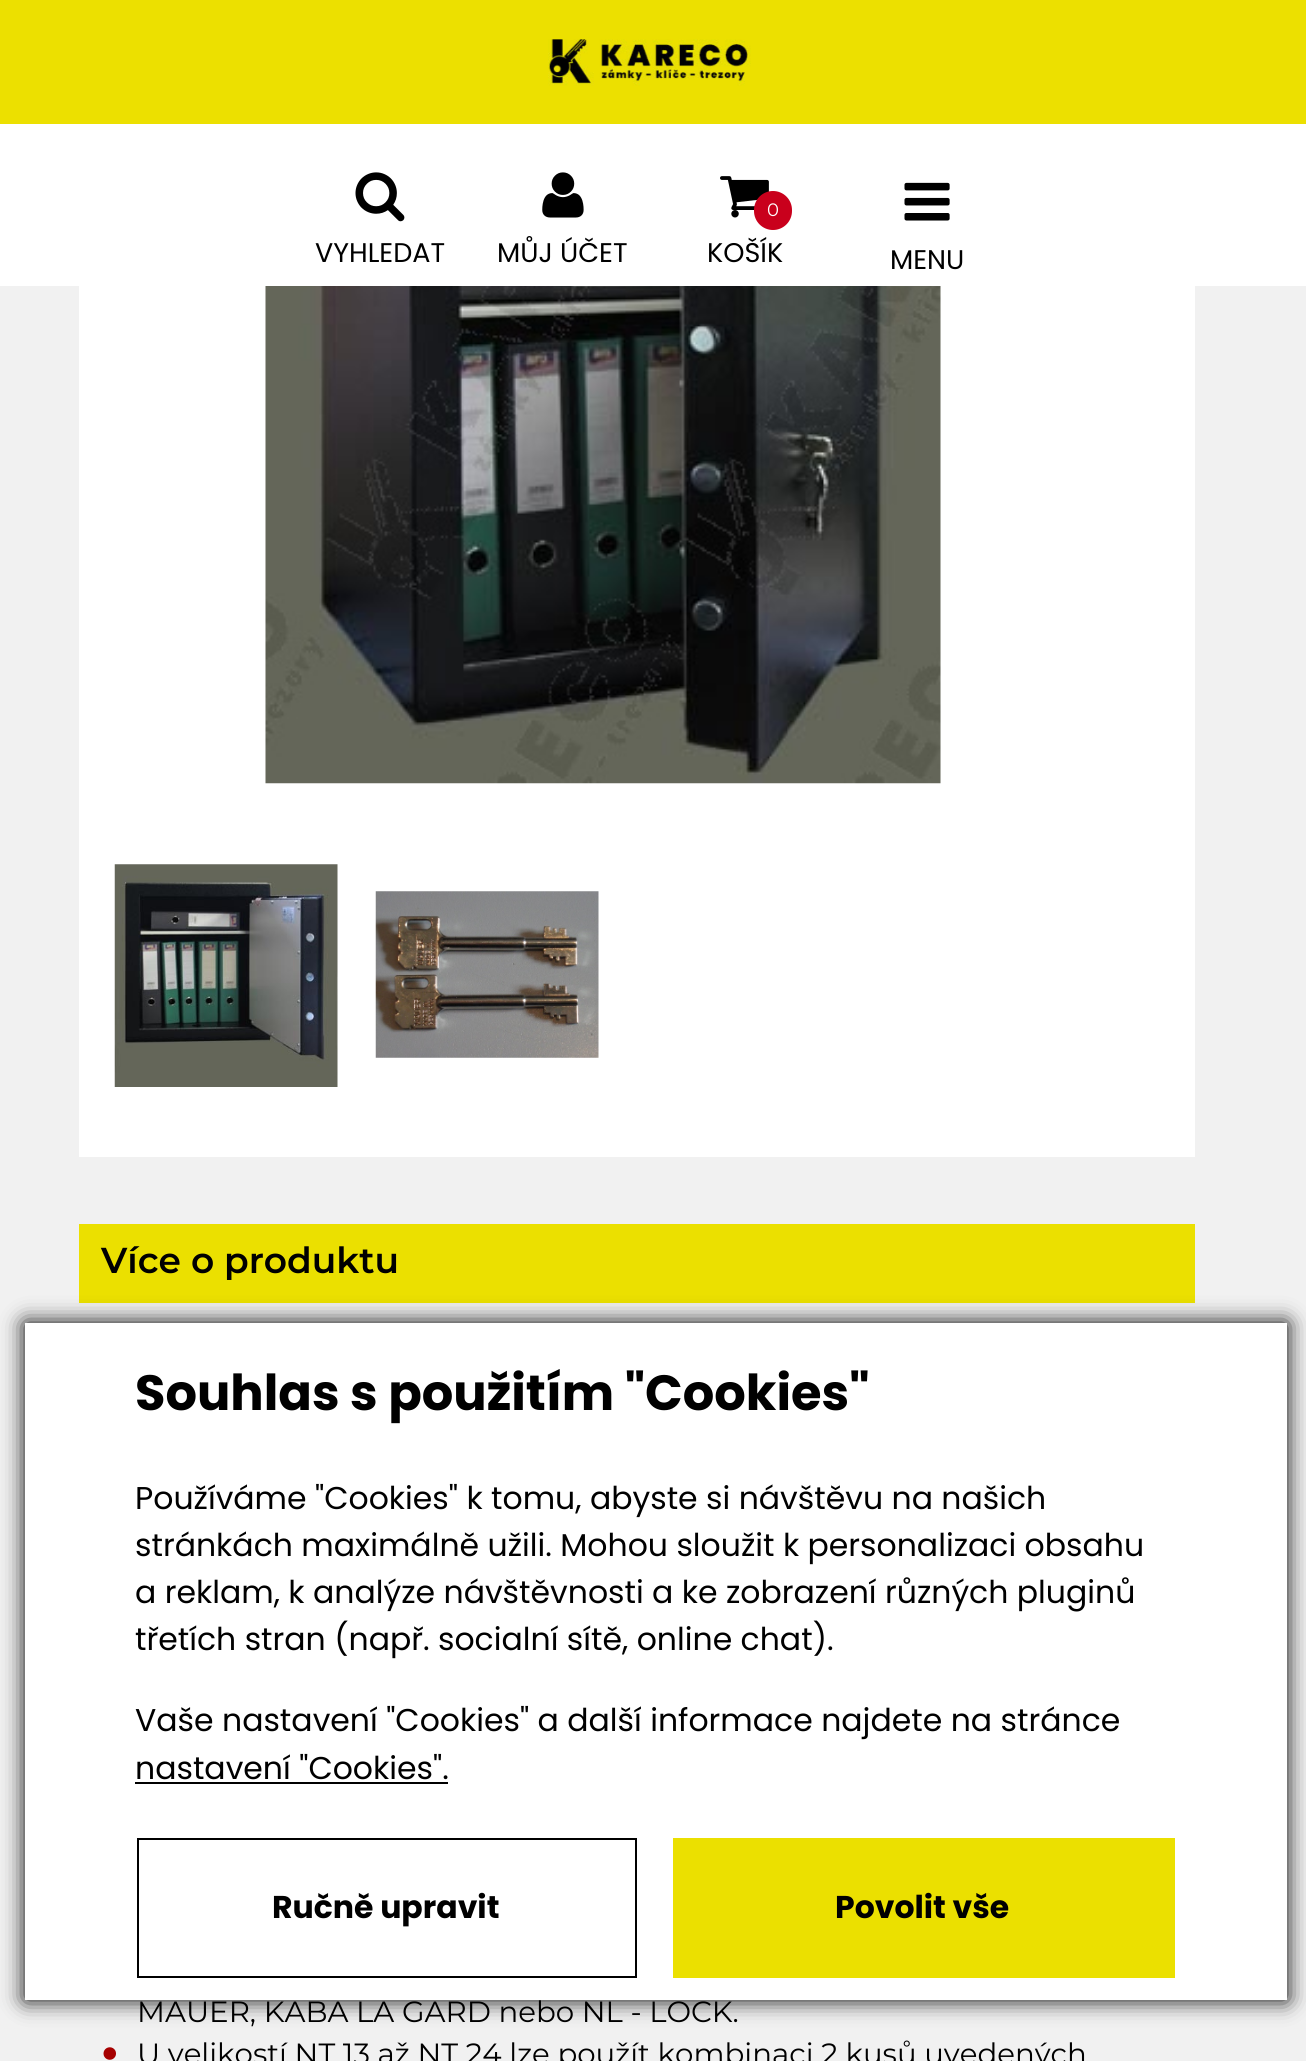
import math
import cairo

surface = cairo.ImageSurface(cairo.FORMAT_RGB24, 1306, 2061)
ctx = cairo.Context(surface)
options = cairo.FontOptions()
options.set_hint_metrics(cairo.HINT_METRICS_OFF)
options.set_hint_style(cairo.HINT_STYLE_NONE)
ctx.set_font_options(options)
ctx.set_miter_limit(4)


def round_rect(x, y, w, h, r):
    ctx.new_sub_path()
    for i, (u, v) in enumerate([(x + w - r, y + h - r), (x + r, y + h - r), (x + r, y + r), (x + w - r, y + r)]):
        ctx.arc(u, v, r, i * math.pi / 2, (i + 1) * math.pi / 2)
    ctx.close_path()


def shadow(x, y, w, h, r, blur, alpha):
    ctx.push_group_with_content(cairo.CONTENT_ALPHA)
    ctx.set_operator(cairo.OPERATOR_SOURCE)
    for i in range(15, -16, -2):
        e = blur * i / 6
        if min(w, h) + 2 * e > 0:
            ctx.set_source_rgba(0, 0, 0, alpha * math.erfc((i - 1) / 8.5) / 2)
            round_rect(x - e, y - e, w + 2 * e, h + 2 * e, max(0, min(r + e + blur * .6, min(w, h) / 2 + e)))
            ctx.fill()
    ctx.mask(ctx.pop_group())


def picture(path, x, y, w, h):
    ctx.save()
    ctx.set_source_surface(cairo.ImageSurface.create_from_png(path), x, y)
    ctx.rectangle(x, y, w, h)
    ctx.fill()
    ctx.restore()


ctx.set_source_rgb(0.945, 0.945, 0.945)
ctx.paint()
ctx.set_source_rgb(1, 1, 1)
ctx.rectangle(0, 124, 1306, 162)
ctx.fill()
ctx.set_source_rgb(0.925, 0.878, 0)
ctx.rectangle(0, 0, 1306, 124)
ctx.fill()
picture("img1.png", 548, 39, 203, 47)
picture("img2.png", 355, 172, 50, 50)
ctx.select_font_face("Poppins")
ctx.set_font_size(27)
ctx.set_source_rgb(0, 0, 0)
ctx.move_to(315, 262)
ctx.show_text("VYHLEDAT")
picture("img3.png", 542, 172, 42, 46)
ctx.move_to(497, 262)
ctx.show_text("MŮJ ÚČET")
picture("img4.png", 720, 176, 49, 42)
ctx.set_source_rgb(0.788, 0, 0.11)
round_rect(754, 191, 38, 39, 19)
ctx.fill()
ctx.select_font_face("Montserrat")
ctx.set_font_size(18)
ctx.set_source_rgb(1, 1, 1)
ctx.move_to(767, 216)
ctx.show_text("0")
ctx.select_font_face("Poppins")
ctx.set_font_size(27)
ctx.set_source_rgb(0, 0, 0)
ctx.move_to(707, 262)
ctx.show_text("KOŠÍK")
picture("img5.png", 904, 182, 46, 39)
ctx.move_to(890, 269)
ctx.show_text("MENU")
ctx.set_source_rgb(1, 1, 1)
ctx.rectangle(79, 286, 1116, 871)
ctx.fill()
picture("img6.png", 265, 286, 676, 498)
picture("img7.png", 114, 864, 224, 223)
picture("img8.png", 375, 891, 224, 167)
ctx.set_source_rgb(0.918, 0.878, 0)
ctx.rectangle(79, 1224, 1116, 79)
ctx.fill()
ctx.select_font_face("Montserrat SemiBold")
ctx.set_font_size(36)
ctx.set_source_rgb(0, 0, 0)
ctx.move_to(101, 1273)
ctx.show_text("Více o produktu")
ctx.select_font_face("Montserrat")
ctx.set_font_size(29.25)
ctx.move_to(137, 2022)
ctx.show_text("MAUER, KABA LA GARD nebo NL - LOCK.")
picture("img9.png", 103, 2047, 13, 13)
ctx.move_to(137, 2064)
ctx.show_text("U velikostí NT 13 až NT 24 lze použít kombinaci 2 kusů uvedených")
ctx.set_source_rgb(0, 0, 0)
shadow(25, 1323, 1262, 677, 0, 11, 1)
ctx.set_source_rgb(1, 1, 1)
ctx.rectangle(25, 1323, 1262, 677)
ctx.fill()
ctx.select_font_face("Poppins", cairo.FONT_SLANT_NORMAL, cairo.FONT_WEIGHT_BOLD)
ctx.set_font_size(49.5)
ctx.set_source_rgb(0, 0, 0)
ctx.move_to(135, 1410)
ctx.show_text("Souhlas s použitím \"Cookies\"")
ctx.select_font_face("Poppins")
ctx.set_font_size(31.5)
ctx.move_to(135, 1509)
ctx.show_text("Používáme \"Cookies\" k tomu, abyste si návštěvu na našich")
ctx.move_to(135, 1556)
ctx.show_text("stránkách maximálně užili. Mohou sloužit k personalizaci obsahu")
ctx.move_to(135, 1603)
ctx.show_text("a reklam, k analýze návštěvnosti a ke zobrazení různých pluginů")
ctx.move_to(135, 1650)
ctx.show_text("třetích stran (např. socialní sítě, online chat).")
ctx.move_to(135, 1731)
ctx.show_text("Vaše nastavení \"Cookies\" a další informace najdete na stránce")
ctx.move_to(135, 1779)
ctx.show_text("nastavení \"Cookies\".")
ctx.rectangle(135, 1782, 313, 2)
ctx.fill()
ctx.rectangle(138, 1839, 498, 138)
ctx.stroke()
ctx.select_font_face("Poppins", cairo.FONT_SLANT_NORMAL, cairo.FONT_WEIGHT_BOLD)
ctx.move_to(272, 1918)
ctx.show_text("Ručně upravit")
ctx.set_source_rgb(0.918, 0.878, 0)
ctx.rectangle(673, 1838, 502, 140)
ctx.fill()
ctx.set_source_rgb(0, 0, 0)
ctx.move_to(835, 1918)
ctx.show_text("Povolit vše")
surface.write_to_png("page.png")
